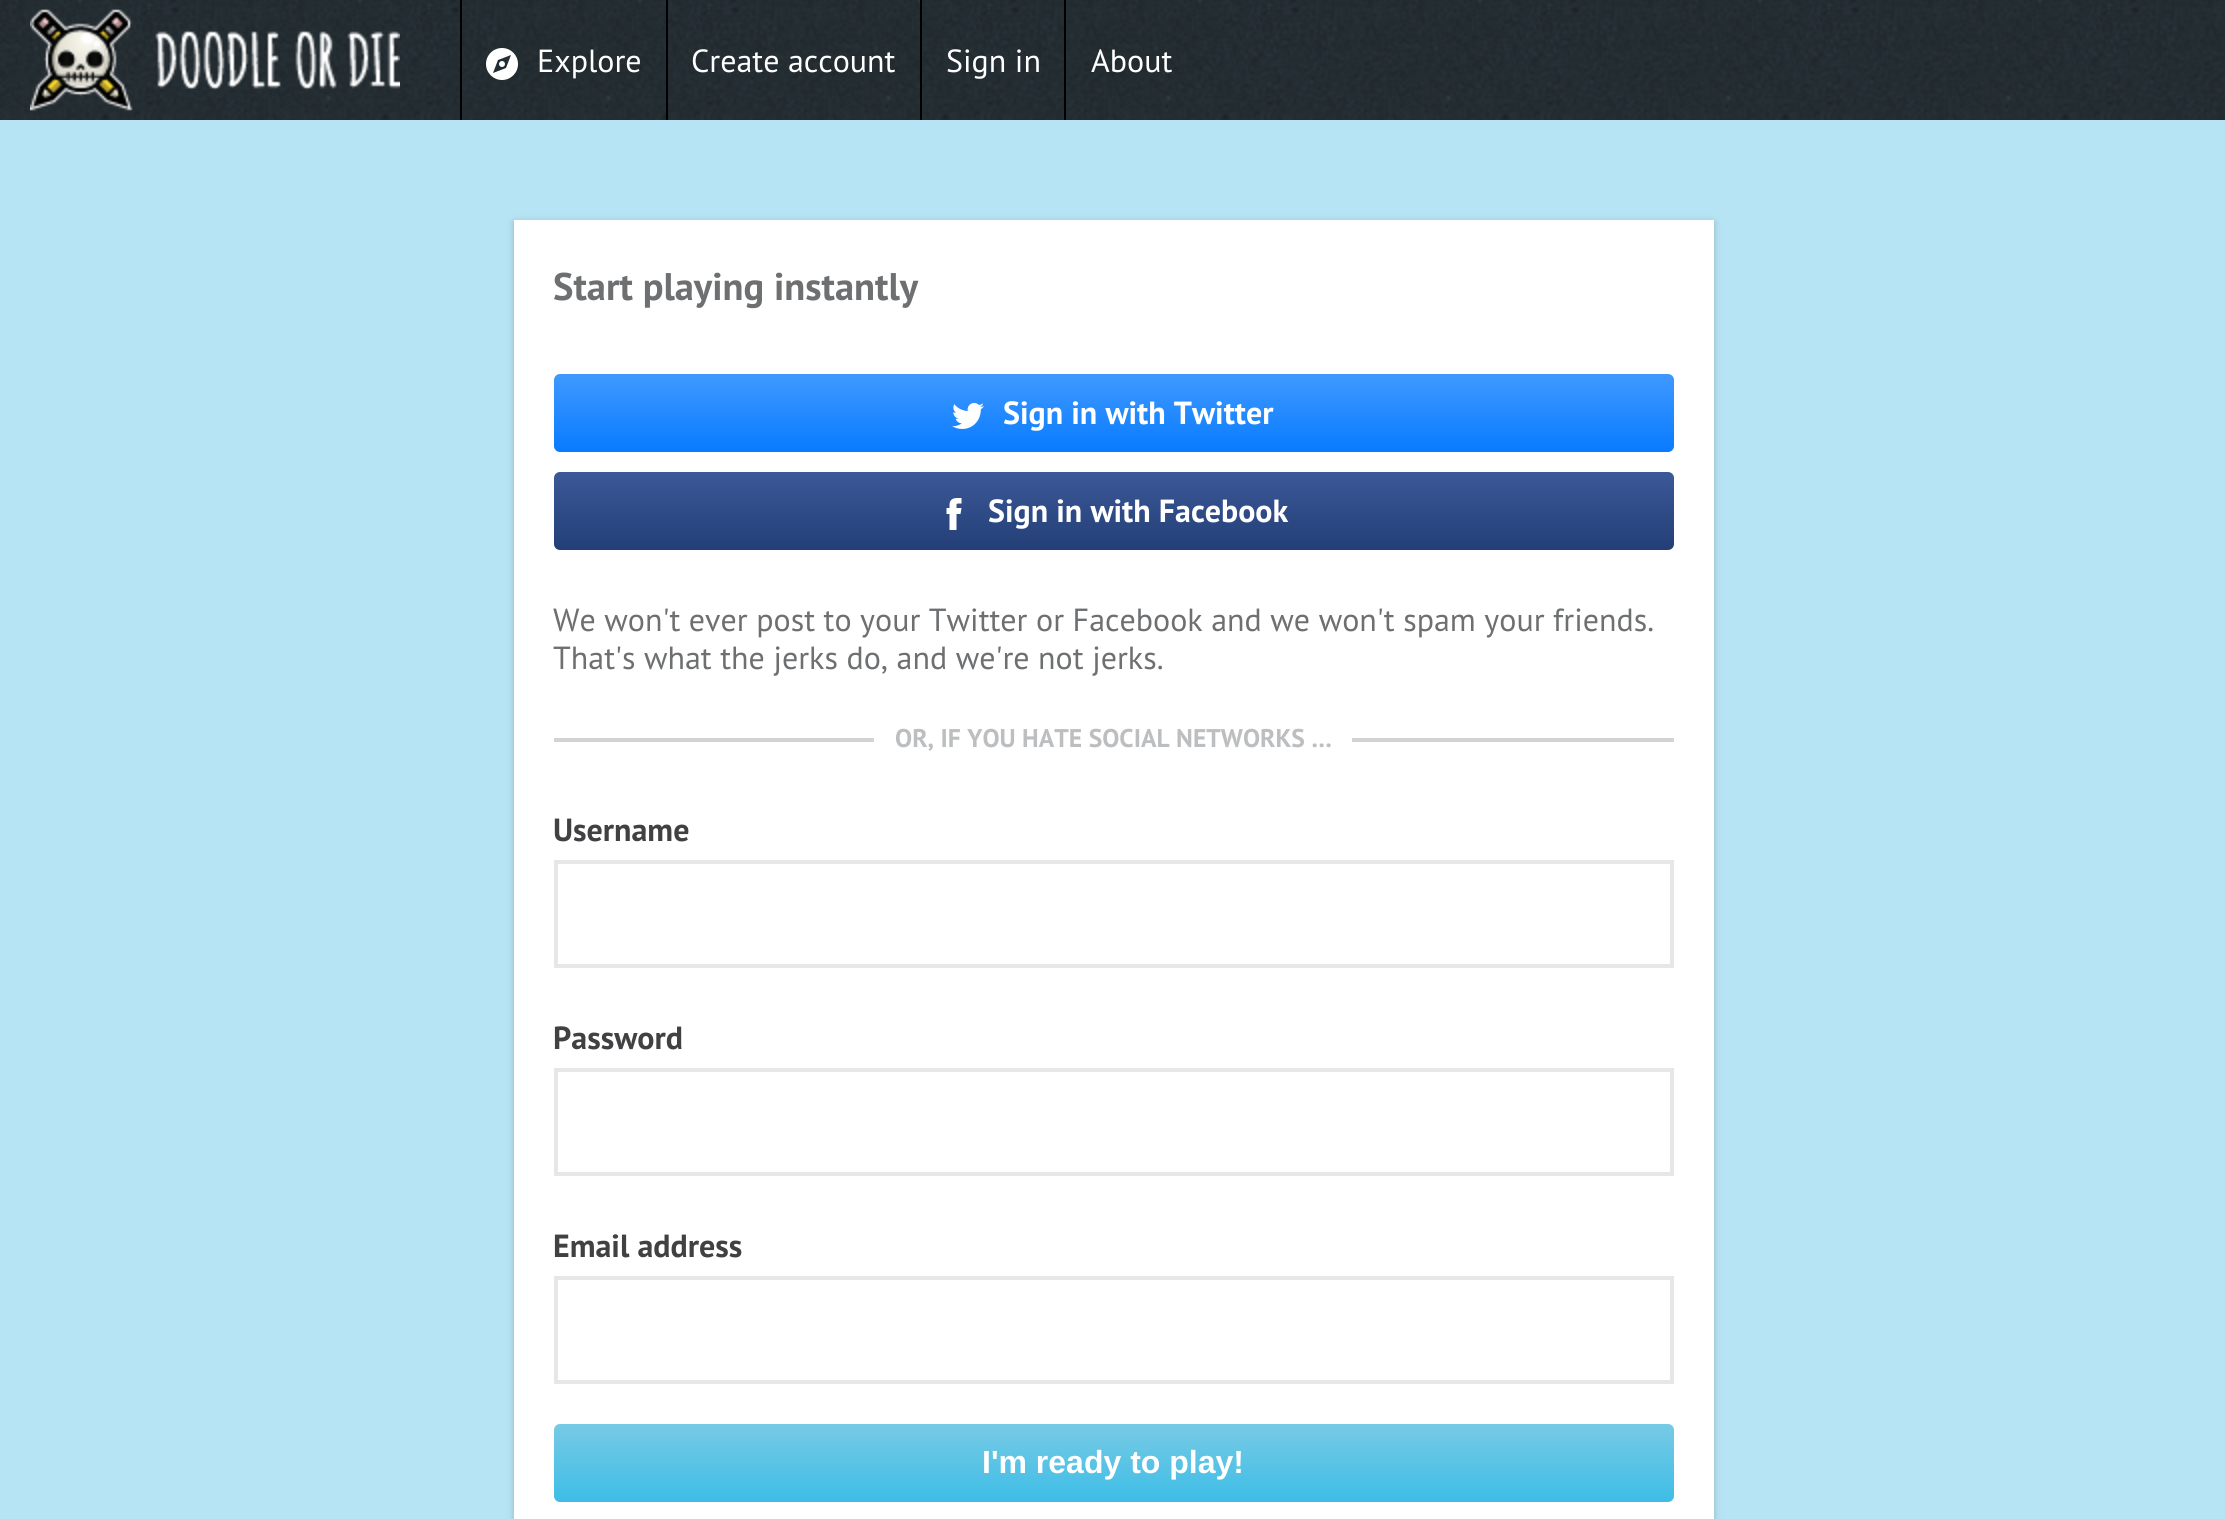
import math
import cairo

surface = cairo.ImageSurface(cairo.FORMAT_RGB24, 2225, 1519)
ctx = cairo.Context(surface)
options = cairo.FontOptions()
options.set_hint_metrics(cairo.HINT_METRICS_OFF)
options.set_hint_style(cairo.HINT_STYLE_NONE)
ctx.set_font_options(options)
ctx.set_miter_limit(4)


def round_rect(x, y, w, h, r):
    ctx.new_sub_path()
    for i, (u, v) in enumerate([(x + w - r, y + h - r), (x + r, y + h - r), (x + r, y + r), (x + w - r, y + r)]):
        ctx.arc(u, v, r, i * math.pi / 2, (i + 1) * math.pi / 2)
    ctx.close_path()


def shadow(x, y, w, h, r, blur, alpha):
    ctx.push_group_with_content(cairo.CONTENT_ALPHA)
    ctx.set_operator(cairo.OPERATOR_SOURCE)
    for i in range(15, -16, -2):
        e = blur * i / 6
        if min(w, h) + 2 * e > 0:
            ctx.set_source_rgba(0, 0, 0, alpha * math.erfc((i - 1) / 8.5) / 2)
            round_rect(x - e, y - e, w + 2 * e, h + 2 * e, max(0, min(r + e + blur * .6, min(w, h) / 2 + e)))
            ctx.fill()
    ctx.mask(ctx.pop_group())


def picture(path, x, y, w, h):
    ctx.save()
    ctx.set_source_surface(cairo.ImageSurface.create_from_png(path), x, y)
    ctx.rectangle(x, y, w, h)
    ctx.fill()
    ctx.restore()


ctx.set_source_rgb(0.718, 0.894, 0.957)
ctx.paint()
picture("img1.png", 0, 0, 2225, 120)
picture("img2.png", 30, 9, 370, 102)
ctx.set_source_rgb(0, 0, 0)
ctx.rectangle(460, 0, 2, 120)
ctx.fill()
picture("img3.png", 486, 48, 32, 32)
ctx.select_font_face("PT Sans")
ctx.set_font_size(32)
ctx.set_source_rgb(1, 1, 1)
ctx.move_to(537, 72)
ctx.show_text("Explore")
ctx.set_source_rgb(0, 0, 0)
ctx.rectangle(666, 0, 2, 120)
ctx.fill()
ctx.set_source_rgb(1, 1, 1)
ctx.move_to(691, 72)
ctx.show_text("Create account")
ctx.set_source_rgb(0, 0, 0)
ctx.rectangle(920, 0, 2, 120)
ctx.fill()
ctx.set_source_rgb(1, 1, 1)
ctx.move_to(946, 72)
ctx.show_text("Sign in")
ctx.set_source_rgb(0, 0, 0)
ctx.rectangle(1064, 0, 2, 120)
ctx.fill()
ctx.set_source_rgb(1, 1, 1)
ctx.move_to(1091, 72)
ctx.show_text("About")
ctx.set_source_rgb(0, 0, 0)
shadow(514, 222, 1200, 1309, 0, 4, 0.2)
ctx.set_source_rgb(1, 1, 1)
ctx.rectangle(514, 220, 1200, 1299)
ctx.fill()
ctx.select_font_face("PT Sans", cairo.FONT_SLANT_NORMAL, cairo.FONT_WEIGHT_BOLD)
ctx.set_font_size(38.5)
ctx.set_source_rgb(0.427, 0.435, 0.443)
ctx.move_to(553, 300)
ctx.show_text("Start playing instantly")
gradient = cairo.LinearGradient(1114, 374, 1114, 452)
gradient.add_color_stop_rgba(0, 0.251, 0.6, 1, 1)
gradient.add_color_stop_rgba(1, 0.031, 0.482, 1, 1)
ctx.set_source(gradient)
round_rect(554, 374, 1120, 78, 6)
ctx.fill()
picture("img4.png", 952, 403, 32, 26)
ctx.set_font_size(32)
ctx.set_source_rgb(1, 1, 1)
ctx.move_to(1003, 424)
ctx.show_text("Sign in with Twitter")
gradient = cairo.LinearGradient(1114, 472, 1114, 550)
gradient.add_color_stop_rgba(0, 0.231, 0.349, 0.596, 1)
gradient.add_color_stop_rgba(1, 0.141, 0.247, 0.467, 1)
ctx.set_source(gradient)
round_rect(554, 472, 1120, 78, 6)
ctx.fill()
picture("img5.png", 946, 498, 16, 32)
ctx.set_source_rgb(1, 1, 1)
ctx.move_to(988, 522)
ctx.show_text("Sign in with Facebook")
ctx.select_font_face("PT Sans")
ctx.set_source_rgb(0.427, 0.435, 0.443)
ctx.move_to(553, 631)
ctx.show_text("We won't ever post to your Twitter or Facebook and we won't spam your friends.")
ctx.move_to(553, 669)
ctx.show_text("That's what the jerks do, and we're not jerks.")
ctx.set_source_rgb(0.82, 0.827, 0.831)
ctx.rectangle(554, 738, 1120, 4)
ctx.fill()
ctx.set_source_rgb(1, 1, 1)
ctx.rectangle(874, 738, 478, 4)
ctx.fill()
ctx.select_font_face("PT Sans", cairo.FONT_SLANT_NORMAL, cairo.FONT_WEIGHT_BOLD)
ctx.set_font_size(25.6)
ctx.set_source_rgb(0.737, 0.745, 0.753)
ctx.move_to(895, 747)
ctx.show_text("OR, IF YOU HATE SOCIAL NETWORKS …")
ctx.set_font_size(32)
ctx.set_source_rgb(0.255, 0.251, 0.259)
ctx.move_to(553, 841)
ctx.show_text("Username")
ctx.rectangle(556, 862, 1116, 104)
ctx.set_source_rgb(0.902, 0.906, 0.91)
ctx.set_line_width(4)
ctx.stroke()
ctx.set_source_rgb(0.255, 0.251, 0.259)
ctx.move_to(553, 1049)
ctx.show_text("Password")
ctx.rectangle(556, 1070, 1116, 104)
ctx.set_source_rgb(0.902, 0.906, 0.91)
ctx.stroke()
ctx.set_source_rgb(0.255, 0.251, 0.259)
ctx.move_to(553, 1257)
ctx.show_text("Email address")
ctx.rectangle(556, 1278, 1116, 104)
ctx.set_source_rgb(0.902, 0.906, 0.91)
ctx.stroke()
gradient = cairo.LinearGradient(1114, 1424, 1114, 1502)
gradient.add_color_stop_rgba(0, 0.467, 0.792, 0.898, 1)
gradient.add_color_stop_rgba(1, 0.243, 0.741, 0.902, 1)
ctx.set_source(gradient)
round_rect(554, 1424, 1120, 78, 6)
ctx.fill()
ctx.select_font_face("Liberation Sans", cairo.FONT_SLANT_NORMAL, cairo.FONT_WEIGHT_BOLD)
ctx.set_source_rgb(1, 1, 1)
ctx.move_to(982, 1473)
ctx.show_text("I'm ready to play!")
surface.write_to_png("page.png")
